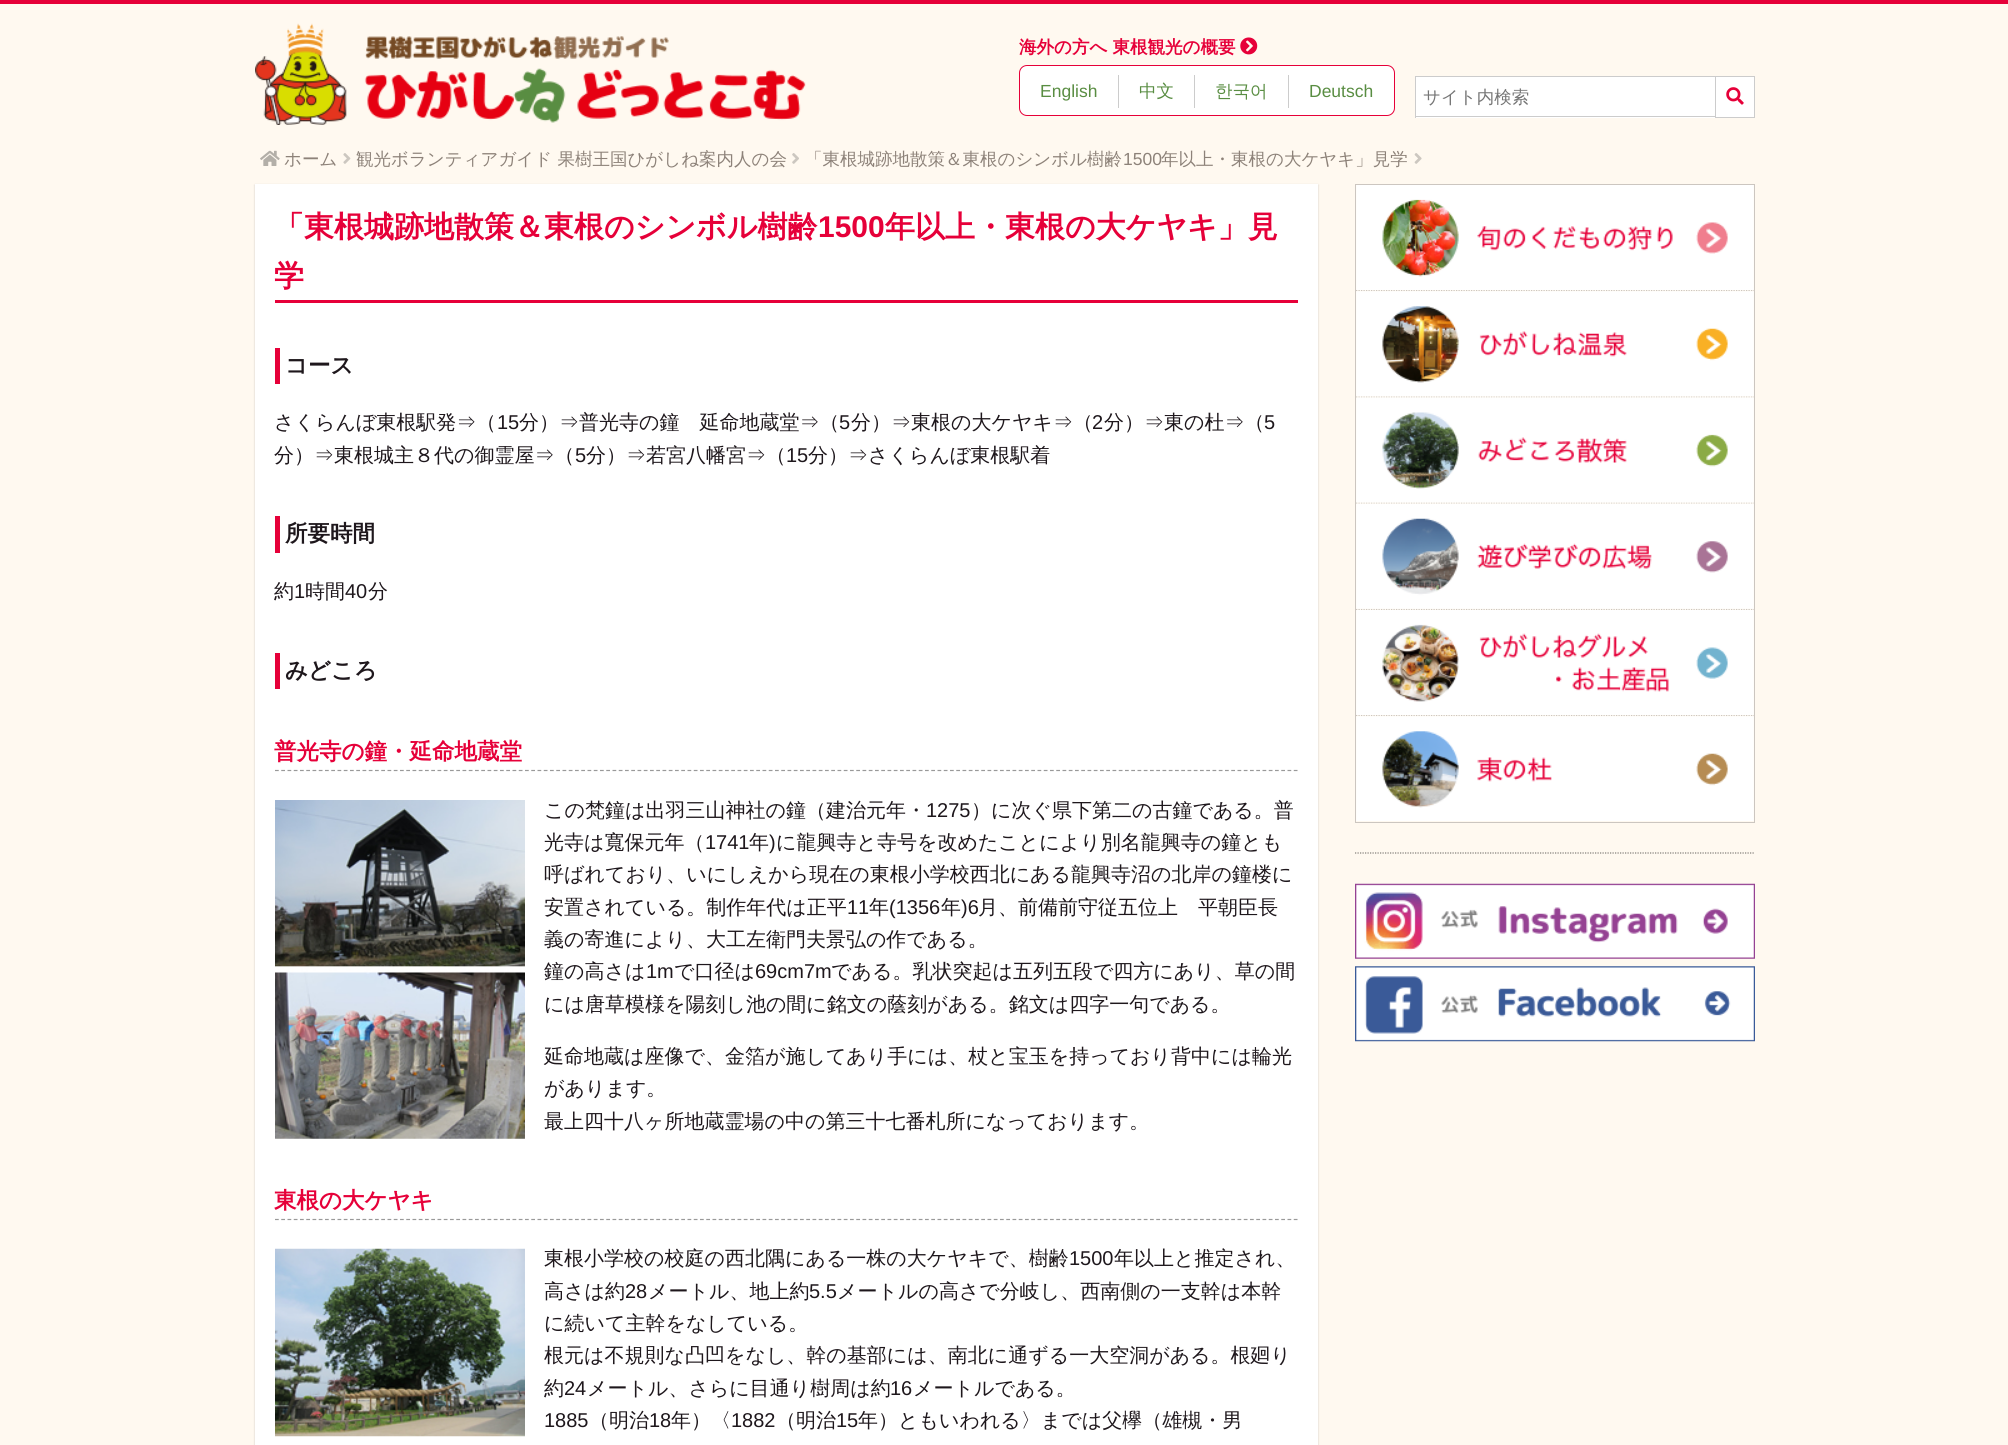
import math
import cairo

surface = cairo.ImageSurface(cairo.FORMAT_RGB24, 2008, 1445)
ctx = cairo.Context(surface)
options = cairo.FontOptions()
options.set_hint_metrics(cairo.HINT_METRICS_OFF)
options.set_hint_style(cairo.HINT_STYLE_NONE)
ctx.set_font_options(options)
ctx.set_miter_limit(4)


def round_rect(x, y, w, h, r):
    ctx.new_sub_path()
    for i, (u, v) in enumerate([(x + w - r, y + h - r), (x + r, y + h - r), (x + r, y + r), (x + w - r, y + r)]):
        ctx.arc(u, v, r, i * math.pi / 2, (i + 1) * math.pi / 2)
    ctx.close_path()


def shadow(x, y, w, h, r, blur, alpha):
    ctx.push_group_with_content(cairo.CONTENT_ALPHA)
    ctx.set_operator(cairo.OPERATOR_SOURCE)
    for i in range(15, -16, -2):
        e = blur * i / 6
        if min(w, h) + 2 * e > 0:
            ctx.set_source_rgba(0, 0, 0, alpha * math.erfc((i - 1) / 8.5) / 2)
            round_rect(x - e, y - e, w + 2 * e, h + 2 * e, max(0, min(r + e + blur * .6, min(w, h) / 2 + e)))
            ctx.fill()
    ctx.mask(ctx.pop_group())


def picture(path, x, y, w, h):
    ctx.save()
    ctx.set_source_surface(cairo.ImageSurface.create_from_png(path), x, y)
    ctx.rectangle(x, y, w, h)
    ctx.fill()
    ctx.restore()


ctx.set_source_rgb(1, 0.973, 0.941)
ctx.paint()
ctx.set_source_rgb(0.902, 0, 0.224)
ctx.rectangle(0, 0, 2008, 4)
ctx.fill()
picture("img1.png", 255, 23, 551, 102)
ctx.select_font_face("WenQuanYi Zen Hei", cairo.FONT_SLANT_NORMAL, cairo.FONT_WEIGHT_BOLD)
ctx.set_font_size(17.5)
ctx.move_to(1019, 53)
ctx.show_text("海外の方へ 東根観光の概要")
picture("img2.png", 1240, 37, 18, 18)
ctx.set_source_rgb(1, 1, 1)
round_rect(1019.5, 65.5, 375, 50, 7.5)
ctx.fill_preserve()
ctx.set_source_rgb(0.902, 0, 0.224)
ctx.set_line_width(1)
ctx.stroke()
ctx.select_font_face("Liberation Sans")
ctx.set_source_rgb(0.349, 0.553, 0.259)
ctx.move_to(1040, 97)
ctx.show_text("English")
ctx.set_source_rgb(0.8, 0.8, 0.8)
ctx.rectangle(1118, 75, 1, 33)
ctx.fill()
ctx.select_font_face("WenQuanYi Zen Hei Medium")
ctx.set_source_rgb(0.349, 0.553, 0.259)
ctx.move_to(1139, 97)
ctx.show_text("中文")
ctx.set_source_rgb(0.8, 0.8, 0.8)
ctx.rectangle(1194, 75, 1, 33)
ctx.fill()
ctx.set_source_rgb(0.349, 0.553, 0.259)
ctx.move_to(1215, 97)
ctx.show_text("한국어")
ctx.set_source_rgb(0.8, 0.8, 0.8)
ctx.rectangle(1288, 75, 1, 33)
ctx.fill()
ctx.select_font_face("Liberation Sans")
ctx.set_source_rgb(0.349, 0.553, 0.259)
ctx.move_to(1309, 97)
ctx.show_text("Deutsch")
ctx.set_source_rgb(1, 1, 1)
ctx.rectangle(1416, 77, 299, 41)
ctx.fill()
ctx.set_source_rgb(0.8, 0.8, 0.8)
ctx.rectangle(1415, 76, 300, 1)
ctx.fill()
ctx.rectangle(1415, 116, 300, 1)
ctx.fill()
ctx.rectangle(1415, 76, 1, 42)
ctx.fill()
ctx.select_font_face("WenQuanYi Zen Hei Medium")
ctx.set_source_rgb(0.459, 0.459, 0.459)
ctx.move_to(1423, 103)
ctx.show_text("サイト内検索")
ctx.set_source_rgb(1, 1, 1)
ctx.rectangle(1715.5, 76.5, 39, 41)
ctx.fill_preserve()
ctx.set_source_rgb(0.8, 0.8, 0.8)
ctx.stroke()
picture("img3.png", 1726, 87, 18, 18)
picture("img4.png", 260, 150, 20, 16)
ctx.set_source_rgb(0.553, 0.51, 0.475)
ctx.move_to(284, 165)
ctx.show_text("ホーム")
picture("img5.png", 343, 153, 8, 11)
ctx.move_to(356, 165)
ctx.show_text("観光ボランティアガイド 果樹王国ひがしね案内人の会")
picture("img6.png", 792, 153, 7, 11)
ctx.move_to(805, 165)
ctx.show_text("「東根城跡地散策＆東根のシンボル樹齢")
ctx.select_font_face("Liberation Sans")
ctx.move_to(1123, 165)
ctx.show_text("1500")
ctx.select_font_face("WenQuanYi Zen Hei Medium")
ctx.move_to(1161, 165)
ctx.show_text("年以上・東根の大ケヤキ」見学")
picture("img7.png", 1414, 153, 8, 11)
ctx.set_source_rgb(0, 0, 0)
shadow(255, 185, 1063, 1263, 0, 1, 0.2)
ctx.set_source_rgb(1, 1, 1)
ctx.rectangle(255, 184, 1063, 1261)
ctx.fill()
ctx.set_source_rgb(0.902, 0, 0.224)
ctx.rectangle(275, 300, 1023, 3)
ctx.fill()
ctx.select_font_face("WenQuanYi Zen Hei", cairo.FONT_SLANT_NORMAL, cairo.FONT_WEIGHT_BOLD)
ctx.set_font_size(30)
ctx.move_to(274, 237)
ctx.show_text("「東根城跡地散策＆東根のシンボル樹齢")
ctx.select_font_face("Liberation Sans", cairo.FONT_SLANT_NORMAL, cairo.FONT_WEIGHT_BOLD)
ctx.move_to(818, 237)
ctx.show_text("1500")
ctx.select_font_face("WenQuanYi Zen Hei", cairo.FONT_SLANT_NORMAL, cairo.FONT_WEIGHT_BOLD)
ctx.move_to(885, 237)
ctx.show_text("年以上・東根の大ケヤキ」見")
ctx.move_to(274, 286)
ctx.show_text("学")
ctx.rectangle(275, 348, 5, 36)
ctx.fill()
ctx.set_font_size(22.5)
ctx.set_source_rgb(0.118, 0.09, 0.11)
ctx.move_to(285, 373)
ctx.show_text("コース")
ctx.select_font_face("WenQuanYi Zen Hei Medium")
ctx.set_font_size(20)
ctx.move_to(274, 429)
ctx.show_text("さくらんぼ東根駅発⇒（")
ctx.select_font_face("Liberation Sans")
ctx.move_to(497, 429)
ctx.show_text("15")
ctx.select_font_face("WenQuanYi Zen Hei Medium")
ctx.move_to(519, 429)
ctx.show_text("分）⇒普光寺の鐘　延命地蔵堂⇒（")
ctx.select_font_face("Liberation Sans")
ctx.move_to(839, 429)
ctx.show_text("5")
ctx.select_font_face("WenQuanYi Zen Hei Medium")
ctx.move_to(851, 429)
ctx.show_text("分）⇒東根の大ケヤキ⇒（")
ctx.select_font_face("Liberation Sans")
ctx.move_to(1092, 429)
ctx.show_text("2")
ctx.select_font_face("WenQuanYi Zen Hei Medium")
ctx.move_to(1104, 429)
ctx.show_text("分）⇒東の杜⇒（")
ctx.select_font_face("Liberation Sans")
ctx.move_to(1264, 429)
ctx.show_text("5")
ctx.select_font_face("WenQuanYi Zen Hei Medium")
ctx.move_to(274, 462)
ctx.show_text("分）⇒東根城主８代の御霊屋⇒（")
ctx.select_font_face("Liberation Sans")
ctx.move_to(575, 462)
ctx.show_text("5")
ctx.select_font_face("WenQuanYi Zen Hei Medium")
ctx.move_to(586, 462)
ctx.show_text("分）⇒若宮八幡宮⇒（")
ctx.select_font_face("Liberation Sans")
ctx.move_to(786, 462)
ctx.show_text("15")
ctx.select_font_face("WenQuanYi Zen Hei Medium")
ctx.move_to(808, 462)
ctx.show_text("分）⇒さくらんぼ東根駅着")
ctx.set_source_rgb(0.902, 0, 0.224)
ctx.rectangle(275, 516, 5, 37)
ctx.fill()
ctx.select_font_face("WenQuanYi Zen Hei", cairo.FONT_SLANT_NORMAL, cairo.FONT_WEIGHT_BOLD)
ctx.set_font_size(22.5)
ctx.set_source_rgb(0.118, 0.09, 0.11)
ctx.move_to(285, 541)
ctx.show_text("所要時間")
ctx.select_font_face("WenQuanYi Zen Hei Medium")
ctx.set_font_size(20)
ctx.move_to(274, 598)
ctx.show_text("約")
ctx.select_font_face("Liberation Sans")
ctx.move_to(294, 598)
ctx.show_text("1")
ctx.select_font_face("WenQuanYi Zen Hei Medium")
ctx.move_to(305, 598)
ctx.show_text("時間")
ctx.select_font_face("Liberation Sans")
ctx.move_to(345, 598)
ctx.show_text("40")
ctx.select_font_face("WenQuanYi Zen Hei Medium")
ctx.move_to(368, 598)
ctx.show_text("分")
ctx.set_source_rgb(0.902, 0, 0.224)
ctx.rectangle(275, 653, 5, 36)
ctx.fill()
ctx.select_font_face("WenQuanYi Zen Hei", cairo.FONT_SLANT_NORMAL, cairo.FONT_WEIGHT_BOLD)
ctx.set_font_size(22.5)
ctx.set_source_rgb(0.118, 0.09, 0.11)
ctx.move_to(285, 678)
ctx.show_text("みどころ")
ctx.new_path()
ctx.move_to(275, 770.5)
ctx.line_to(1297.5, 770.5)
ctx.set_source_rgb(0.6, 0.6, 0.6)
ctx.set_line_width(1.2)
ctx.set_dash([3.75, 2.5])
ctx.stroke()
ctx.set_source_rgb(0.902, 0, 0.224)
ctx.move_to(274, 759)
ctx.show_text("普光寺の鐘・延命地蔵堂")
picture("img8.png", 275, 800, 250, 339)
ctx.select_font_face("WenQuanYi Zen Hei Medium")
ctx.set_font_size(20)
ctx.set_source_rgb(0.118, 0.09, 0.11)
ctx.move_to(544, 817)
ctx.show_text("この梵鐘は出羽三山神社の鐘（建治元年・")
ctx.select_font_face("Liberation Sans")
ctx.move_to(926, 817)
ctx.show_text("1275")
ctx.select_font_face("WenQuanYi Zen Hei Medium")
ctx.move_to(971, 817)
ctx.show_text("）に次ぐ県下第二の古鐘である。普")
ctx.move_to(544, 849)
ctx.show_text("光寺は寬保元年（")
ctx.select_font_face("Liberation Sans")
ctx.move_to(705, 849)
ctx.show_text("1741")
ctx.select_font_face("WenQuanYi Zen Hei Medium")
ctx.move_to(749, 849)
ctx.show_text("年")
ctx.select_font_face("Liberation Sans")
ctx.move_to(769, 849)
ctx.show_text(")")
ctx.select_font_face("WenQuanYi Zen Hei Medium")
ctx.move_to(776, 849)
ctx.show_text("に龍興寺と寺号を改めたことにより別名龍興寺の鐘とも")
ctx.move_to(544, 881)
ctx.show_text("呼ばれており、いにしえから現在の東根小学校西北にある龍興寺沼の北岸の鐘楼に")
ctx.move_to(544, 914)
ctx.show_text("安置されている。制作年代は正平")
ctx.select_font_face("Liberation Sans")
ctx.move_to(847, 914)
ctx.show_text("11")
ctx.select_font_face("WenQuanYi Zen Hei Medium")
ctx.move_to(869, 914)
ctx.show_text("年")
ctx.select_font_face("Liberation Sans")
ctx.move_to(889, 914)
ctx.show_text("(1356")
ctx.select_font_face("WenQuanYi Zen Hei Medium")
ctx.move_to(941, 914)
ctx.show_text("年")
ctx.select_font_face("Liberation Sans")
ctx.move_to(961, 914)
ctx.show_text(")6")
ctx.select_font_face("WenQuanYi Zen Hei Medium")
ctx.move_to(978, 914)
ctx.show_text("月、前備前守従五位上　平朝臣長")
ctx.move_to(544, 946)
ctx.show_text("義の寄進により、大工左衛門夫景弘の作である。")
ctx.move_to(544, 978)
ctx.show_text("鐘の高さは")
ctx.select_font_face("Liberation Sans")
ctx.move_to(646, 978)
ctx.show_text("1m")
ctx.select_font_face("WenQuanYi Zen Hei Medium")
ctx.move_to(674, 978)
ctx.show_text("で口径は")
ctx.select_font_face("Liberation Sans")
ctx.move_to(755, 978)
ctx.show_text("69cm7m")
ctx.select_font_face("WenQuanYi Zen Hei Medium")
ctx.move_to(831, 978)
ctx.show_text("である。乳状突起は五列五段で四方にあり、草の間")
ctx.move_to(544, 1011)
ctx.show_text("には唐草模様を陽刻し池の間に銘文の蔭刻がある。銘文は四字一句である。")
ctx.move_to(544, 1063)
ctx.show_text("延命地蔵は座像で、金箔が施してあり手には、杖と宝玉を持っており背中には輪光")
ctx.move_to(544, 1095)
ctx.show_text("があります。")
ctx.move_to(544, 1128)
ctx.show_text("最上四十八ヶ所地蔵霊場の中の第三十七番札所になっております。")
ctx.new_path()
ctx.move_to(275, 1219.5)
ctx.line_to(1297.5, 1219.5)
ctx.set_source_rgb(0.6, 0.6, 0.6)
ctx.stroke()
ctx.select_font_face("WenQuanYi Zen Hei", cairo.FONT_SLANT_NORMAL, cairo.FONT_WEIGHT_BOLD)
ctx.set_font_size(22.5)
ctx.set_source_rgb(0.902, 0, 0.224)
ctx.move_to(274, 1208)
ctx.show_text("東根の大ケヤキ")
picture("img9.png", 275, 1248, 250, 189)
ctx.select_font_face("WenQuanYi Zen Hei Medium")
ctx.set_font_size(20)
ctx.set_source_rgb(0.118, 0.09, 0.11)
ctx.move_to(544, 1265)
ctx.show_text("東根小学校の校庭の西北隅にある一株の大ケヤキで、樹齢")
ctx.select_font_face("Liberation Sans")
ctx.move_to(1069, 1265)
ctx.show_text("1500")
ctx.select_font_face("WenQuanYi Zen Hei Medium")
ctx.move_to(1114, 1265)
ctx.show_text("年以上と推定され、")
ctx.move_to(544, 1298)
ctx.show_text("高さは約")
ctx.select_font_face("Liberation Sans")
ctx.move_to(625, 1298)
ctx.show_text("28")
ctx.select_font_face("WenQuanYi Zen Hei Medium")
ctx.move_to(648, 1298)
ctx.show_text("メートル、地上約")
ctx.select_font_face("Liberation Sans")
ctx.move_to(809, 1298)
ctx.show_text("5.5")
ctx.select_font_face("WenQuanYi Zen Hei Medium")
ctx.move_to(837, 1298)
ctx.show_text("メートルの高さで分岐し、西南側の一支幹は本幹")
ctx.move_to(544, 1330)
ctx.show_text("に続いて主幹をなしている。")
ctx.move_to(544, 1362)
ctx.show_text("根元は不規則な凸凹をなし、幹の基部には、南北に通ずる一大空洞がある。根廻り")
ctx.move_to(544, 1395)
ctx.show_text("約")
ctx.select_font_face("Liberation Sans")
ctx.move_to(564, 1395)
ctx.show_text("24")
ctx.select_font_face("WenQuanYi Zen Hei Medium")
ctx.move_to(587, 1395)
ctx.show_text("メートル、さらに目通り樹周は約")
ctx.select_font_face("Liberation Sans")
ctx.move_to(890, 1395)
ctx.show_text("16")
ctx.select_font_face("WenQuanYi Zen Hei Medium")
ctx.move_to(913, 1395)
ctx.show_text("メートルである。")
ctx.select_font_face("Liberation Sans")
ctx.move_to(544, 1427)
ctx.show_text("1885")
ctx.select_font_face("WenQuanYi Zen Hei Medium")
ctx.move_to(589, 1427)
ctx.show_text("（明治")
ctx.select_font_face("Liberation Sans")
ctx.move_to(649, 1427)
ctx.show_text("18")
ctx.select_font_face("WenQuanYi Zen Hei Medium")
ctx.move_to(671, 1427)
ctx.show_text("年）〈")
ctx.select_font_face("Liberation Sans")
ctx.move_to(731, 1427)
ctx.show_text("1882")
ctx.select_font_face("WenQuanYi Zen Hei Medium")
ctx.move_to(776, 1427)
ctx.show_text("（明治")
ctx.select_font_face("Liberation Sans")
ctx.move_to(836, 1427)
ctx.show_text("15")
ctx.select_font_face("WenQuanYi Zen Hei Medium")
ctx.move_to(858, 1427)
ctx.show_text("年）ともいわれる〉までは父欅（雄槻・男")
ctx.rectangle(1355.5, 184.5, 399, 638)
ctx.set_source_rgb(0.8, 0.776, 0.753)
ctx.set_line_width(1)
ctx.set_dash([])
ctx.stroke()
ctx.new_path()
ctx.move_to(1356, 290.5)
ctx.line_to(1754, 290.5)
ctx.set_line_width(1.2)
ctx.set_dash([1.25, 1.25])
ctx.stroke()
picture("img10.png", 1356, 185, 398, 105)
ctx.new_path()
ctx.move_to(1356, 397)
ctx.line_to(1754, 397)
ctx.stroke()
picture("img11.png", 1356, 291, 398, 106)
ctx.new_path()
ctx.move_to(1356, 503)
ctx.line_to(1754, 503)
ctx.stroke()
picture("img12.png", 1356, 397, 398, 106)
ctx.new_path()
ctx.move_to(1356, 609.5)
ctx.line_to(1754, 609.5)
ctx.stroke()
picture("img13.png", 1356, 503, 398, 106)
ctx.new_path()
ctx.move_to(1356, 715.5)
ctx.line_to(1754, 715.5)
ctx.stroke()
picture("img14.png", 1356, 610, 398, 105)
picture("img15.png", 1356, 716, 398, 105)
ctx.new_path()
ctx.move_to(1355, 853)
ctx.line_to(1755, 853)
ctx.set_source_rgb(0.502, 0.486, 0.471)
ctx.stroke()
picture("img16.png", 1355, 883, 400, 76)
picture("img17.png", 1355, 966, 400, 76)
surface.write_to_png("page.png")
